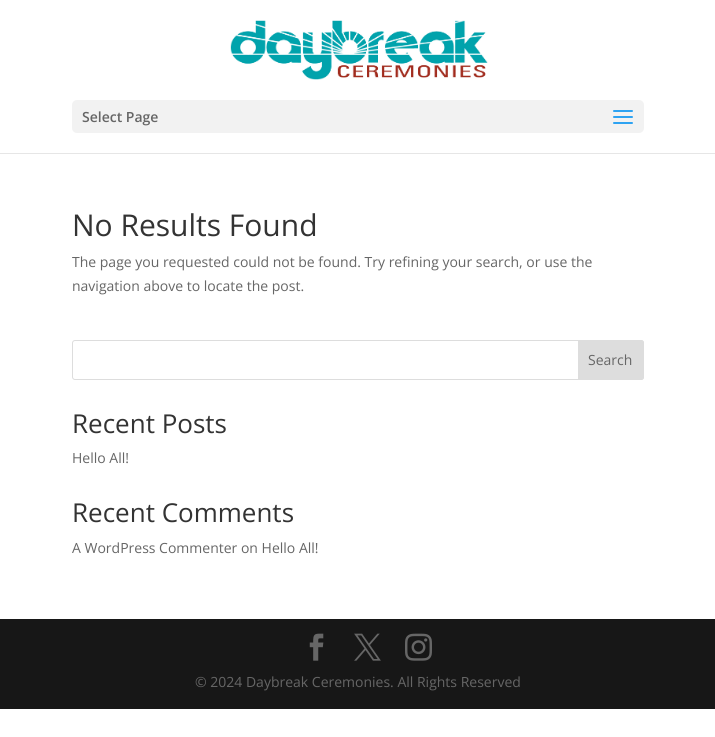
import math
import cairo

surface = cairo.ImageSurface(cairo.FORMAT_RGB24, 715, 737)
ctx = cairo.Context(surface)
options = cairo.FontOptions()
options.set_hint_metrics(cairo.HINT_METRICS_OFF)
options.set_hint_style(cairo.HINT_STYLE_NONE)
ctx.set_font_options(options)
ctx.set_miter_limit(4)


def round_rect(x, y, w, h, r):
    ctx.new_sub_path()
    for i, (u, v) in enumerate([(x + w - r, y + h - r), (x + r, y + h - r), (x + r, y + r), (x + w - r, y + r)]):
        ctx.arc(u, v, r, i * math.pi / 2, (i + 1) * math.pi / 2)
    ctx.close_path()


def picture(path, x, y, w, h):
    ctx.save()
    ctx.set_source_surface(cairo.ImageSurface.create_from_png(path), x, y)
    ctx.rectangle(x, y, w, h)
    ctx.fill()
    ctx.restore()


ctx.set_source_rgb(1, 1, 1)
ctx.paint()
ctx.set_source_rgb(0.902, 0.902, 0.902)
ctx.rectangle(0, 153, 715, 1)
ctx.fill()
picture("img1.png", 230, 20, 258, 60)
ctx.set_source_rgb(0.949, 0.949, 0.949)
round_rect(72, 100, 572, 33, 5)
ctx.fill()
ctx.select_font_face("Open Sans SemiBold")
ctx.set_font_size(14)
ctx.set_source_rgb(0.4, 0.4, 0.4)
ctx.move_to(82, 122)
ctx.show_text("Select Page")
picture("img2.png", 613, 110, 20, 14)
ctx.select_font_face("Open Sans")
ctx.set_font_size(30)
ctx.set_source_rgb(0.2, 0.2, 0.2)
ctx.move_to(72, 236)
ctx.show_text("No Results Found")
ctx.set_font_size(14)
ctx.set_source_rgb(0.4, 0.4, 0.4)
ctx.move_to(72, 267)
ctx.show_text("The page you requested could not be found. Try refining your search, or use the")
ctx.move_to(72, 291)
ctx.show_text("navigation above to locate the post.")
round_rect(72.5, 340.5, 571, 39, 2.5)
ctx.set_source_rgb(0.867, 0.867, 0.867)
ctx.set_line_width(1)
ctx.stroke()
ctx.new_path()
ctx.move_to(578.5, 340.5)
ctx.line_to(641, 340.5)
ctx.curve_to(642.5, 340.5, 643.5, 341.5, 643.5, 343)
ctx.line_to(643.5, 377)
ctx.curve_to(643.5, 378.5, 642.5, 379.5, 641, 379.5)
ctx.line_to(578.5, 379.5)
ctx.close_path()
ctx.fill_preserve()
ctx.stroke()
ctx.set_source_rgb(0.4, 0.4, 0.4)
ctx.move_to(588, 365)
ctx.show_text("Search")
ctx.set_font_size(26)
ctx.set_source_rgb(0.2, 0.2, 0.2)
ctx.move_to(72, 433)
ctx.show_text("Recent Posts")
ctx.set_font_size(14)
ctx.set_source_rgb(0.4, 0.4, 0.4)
ctx.move_to(72, 463)
ctx.show_text("Hello All!")
ctx.set_font_size(26)
ctx.set_source_rgb(0.2, 0.2, 0.2)
ctx.move_to(72, 522)
ctx.show_text("Recent Comments")
ctx.set_font_size(14)
ctx.set_source_rgb(0.4, 0.4, 0.4)
ctx.move_to(72, 553)
ctx.show_text("A WordPress Commenter on Hello All!")
ctx.set_source_rgb(0.09, 0.09, 0.09)
ctx.rectangle(0, 619, 715, 90)
ctx.fill()
picture("img3.png", 309, 633, 15, 28)
picture("img4.png", 354, 633, 27, 28)
picture("img5.png", 405, 633, 27, 28)
ctx.set_source_rgb(0.4, 0.4, 0.4)
ctx.move_to(195, 687)
ctx.show_text("© 2024 Daybreak Ceremonies. All Rights Reserved")
surface.write_to_png("page.png")
